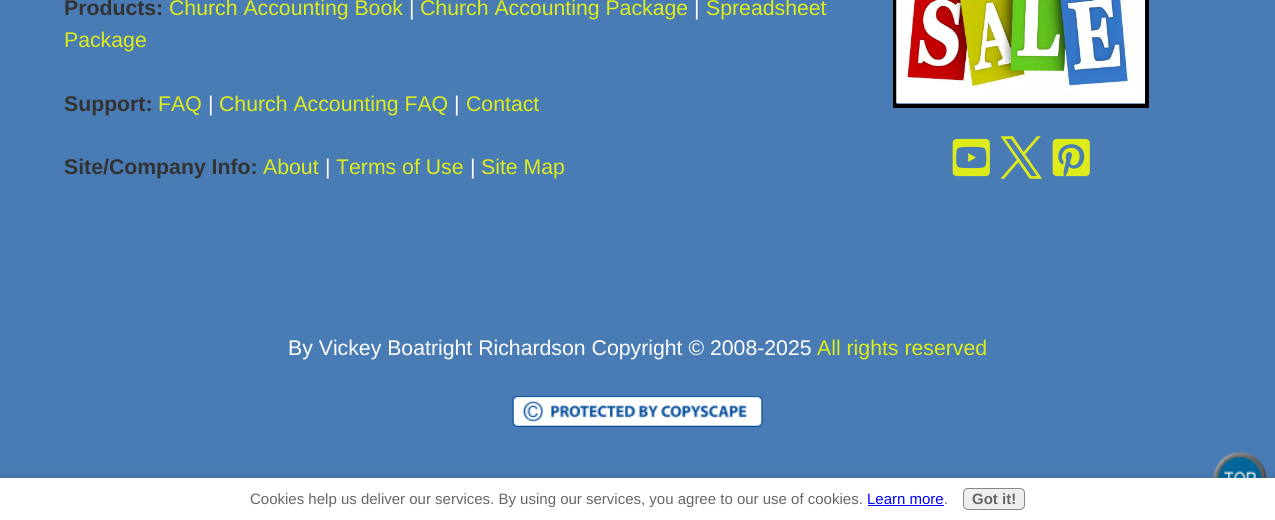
import math
import cairo

surface = cairo.ImageSurface(cairo.FORMAT_RGB24, 1275, 520)
ctx = cairo.Context(surface)
options = cairo.FontOptions()
options.set_hint_metrics(cairo.HINT_METRICS_OFF)
options.set_hint_style(cairo.HINT_STYLE_NONE)
ctx.set_font_options(options)
ctx.set_miter_limit(4)


def round_rect(x, y, w, h, r):
    ctx.new_sub_path()
    for i, (u, v) in enumerate([(x + w - r, y + h - r), (x + r, y + h - r), (x + r, y + r), (x + w - r, y + r)]):
        ctx.arc(u, v, r, i * math.pi / 2, (i + 1) * math.pi / 2)
    ctx.close_path()


def shadow(x, y, w, h, r, blur, alpha):
    ctx.push_group_with_content(cairo.CONTENT_ALPHA)
    ctx.set_operator(cairo.OPERATOR_SOURCE)
    for i in range(15, -16, -2):
        e = blur * i / 6
        if min(w, h) + 2 * e > 0:
            ctx.set_source_rgba(0, 0, 0, alpha * math.erfc((i - 1) / 8.5) / 2)
            round_rect(x - e, y - e, w + 2 * e, h + 2 * e, max(0, min(r + e + blur * .6, min(w, h) / 2 + e)))
            ctx.fill()
    ctx.mask(ctx.pop_group())


def picture(path, x, y, w, h):
    ctx.save()
    ctx.set_source_surface(cairo.ImageSurface.create_from_png(path), x, y)
    ctx.rectangle(x, y, w, h)
    ctx.fill()
    ctx.restore()


ctx.set_source_rgb(0.286, 0.486, 0.706)
ctx.paint()
ctx.select_font_face("Liberation Sans", cairo.FONT_SLANT_NORMAL, cairo.FONT_WEIGHT_BOLD)
ctx.set_font_size(21.25)
ctx.set_source_rgb(0.2, 0.2, 0.2)
ctx.move_to(64, 15)
ctx.show_text("Products:")
ctx.select_font_face("Liberation Sans")
ctx.set_source_rgb(0.867, 0.922, 0.102)
ctx.move_to(169, 15)
ctx.show_text("Church Accounting Book")
ctx.set_source_rgb(1, 1, 1)
ctx.move_to(409, 15)
ctx.show_text("|")
ctx.set_source_rgb(0.867, 0.922, 0.102)
ctx.move_to(420, 15)
ctx.show_text("Church Accounting Package")
ctx.set_source_rgb(1, 1, 1)
ctx.move_to(694, 15)
ctx.show_text("|")
ctx.set_source_rgb(0.867, 0.922, 0.102)
ctx.move_to(706, 15)
ctx.show_text("Spreadsheet")
ctx.move_to(64, 47)
ctx.show_text("Package")
ctx.select_font_face("Liberation Sans", cairo.FONT_SLANT_NORMAL, cairo.FONT_WEIGHT_BOLD)
ctx.set_source_rgb(0.2, 0.2, 0.2)
ctx.move_to(64, 111)
ctx.show_text("Support:")
ctx.select_font_face("Liberation Sans")
ctx.set_source_rgb(0.867, 0.922, 0.102)
ctx.move_to(158, 111)
ctx.show_text("FAQ")
ctx.set_source_rgb(1, 1, 1)
ctx.move_to(208, 111)
ctx.show_text("|")
ctx.set_source_rgb(0.867, 0.922, 0.102)
ctx.move_to(219, 111)
ctx.show_text("Church Accounting FAQ")
ctx.set_source_rgb(1, 1, 1)
ctx.move_to(454, 111)
ctx.show_text("|")
ctx.set_source_rgb(0.867, 0.922, 0.102)
ctx.move_to(466, 111)
ctx.show_text("Contact")
ctx.select_font_face("Liberation Sans", cairo.FONT_SLANT_NORMAL, cairo.FONT_WEIGHT_BOLD)
ctx.set_source_rgb(0.2, 0.2, 0.2)
ctx.move_to(64, 174)
ctx.show_text("Site/Company Info:")
ctx.select_font_face("Liberation Sans")
ctx.set_source_rgb(0.867, 0.922, 0.102)
ctx.move_to(263, 174)
ctx.show_text("About")
ctx.set_source_rgb(1, 1, 1)
ctx.move_to(325, 174)
ctx.show_text("|")
ctx.set_source_rgb(0.867, 0.922, 0.102)
ctx.move_to(336, 174)
ctx.show_text("Terms of Use")
ctx.set_source_rgb(1, 1, 1)
ctx.move_to(470, 174)
ctx.show_text("|")
ctx.set_source_rgb(0.867, 0.922, 0.102)
ctx.move_to(481, 174)
ctx.show_text("Site Map")
ctx.rectangle(895, -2, 252, 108)
ctx.set_source_rgb(0, 0, 0)
ctx.set_line_width(4)
ctx.stroke()
picture("img1.png", 896, 0, 249, 104)
picture("img2.png", 952, 138, 38, 39)
picture("img3.png", 1000, 136, 42, 43)
picture("img4.png", 1052, 138, 38, 39)
ctx.set_source_rgb(1, 1, 1)
ctx.move_to(288, 355)
ctx.show_text("By Vickey Boatright Richardson Copyright © 2008-2025")
ctx.set_source_rgb(0.867, 0.922, 0.102)
ctx.move_to(817, 355)
ctx.show_text("All rights reserved")
picture("img5.png", 512, 395, 251, 32)
picture("img6.png", 1213, 452, 54, 26)
ctx.set_source_rgb(0, 0, 0)
shadow(-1, 481, 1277, 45, 0, 6, 0.2)
ctx.set_source_rgb(1, 1, 1)
ctx.rectangle(0, 478, 1275, 42)
ctx.fill()
ctx.set_font_size(15)
ctx.set_source_rgb(0.4, 0.4, 0.4)
ctx.move_to(250, 504)
ctx.show_text("Cookies help us deliver our services. By using our services, you agree to our use of cookies.")
ctx.set_source_rgb(0, 0, 1)
ctx.move_to(867, 504)
ctx.show_text("Learn more")
ctx.rectangle(868, 505, 76, 1)
ctx.fill()
ctx.set_source_rgb(0.4, 0.4, 0.4)
ctx.move_to(944, 504)
ctx.show_text(".")
ctx.set_source_rgb(0.933, 0.933, 0.933)
round_rect(963.5, 488.5, 61, 21, 4.5)
ctx.fill_preserve()
ctx.set_source_rgb(0.533, 0.533, 0.533)
ctx.set_line_width(1)
ctx.stroke()
ctx.select_font_face("Liberation Sans", cairo.FONT_SLANT_NORMAL, cairo.FONT_WEIGHT_BOLD)
ctx.set_source_rgb(0.4, 0.4, 0.4)
ctx.move_to(972, 504)
ctx.show_text("Got it!")
surface.write_to_png("page.png")
